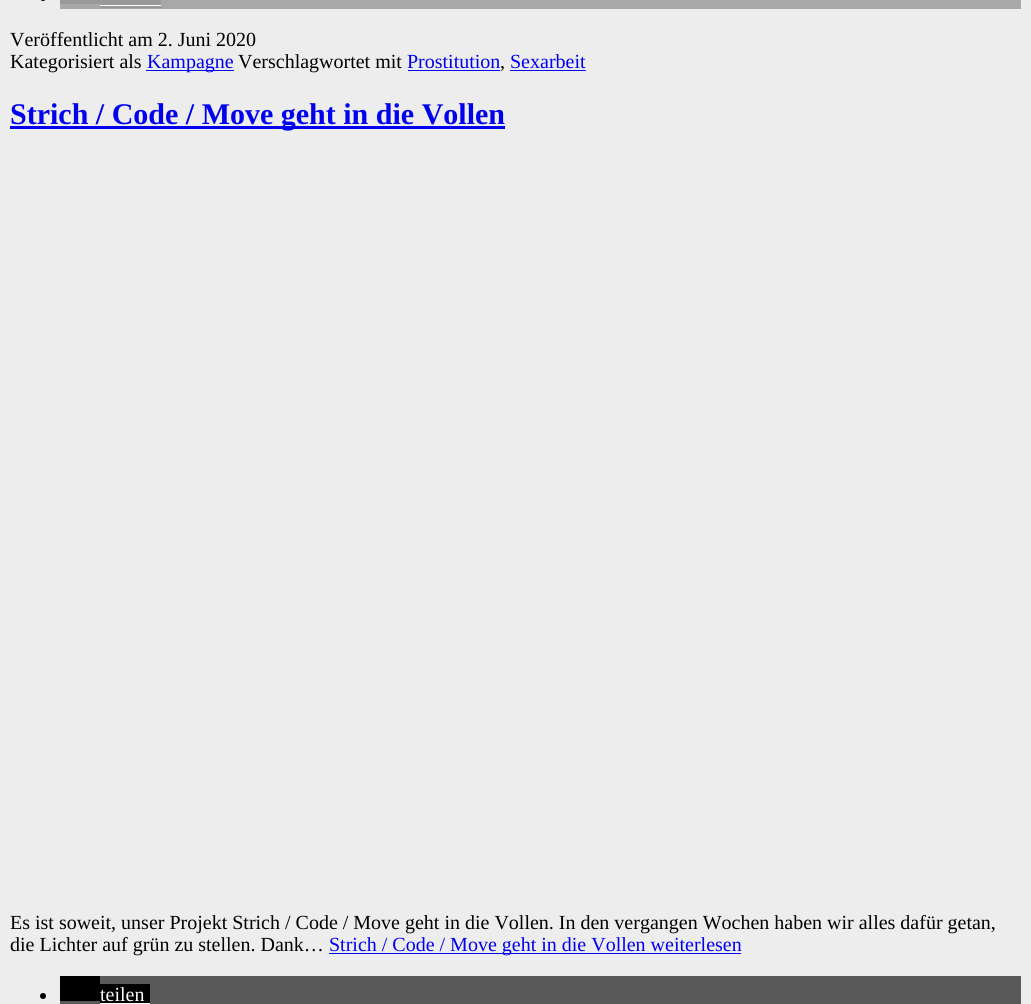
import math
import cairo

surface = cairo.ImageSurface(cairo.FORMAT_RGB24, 1031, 1004)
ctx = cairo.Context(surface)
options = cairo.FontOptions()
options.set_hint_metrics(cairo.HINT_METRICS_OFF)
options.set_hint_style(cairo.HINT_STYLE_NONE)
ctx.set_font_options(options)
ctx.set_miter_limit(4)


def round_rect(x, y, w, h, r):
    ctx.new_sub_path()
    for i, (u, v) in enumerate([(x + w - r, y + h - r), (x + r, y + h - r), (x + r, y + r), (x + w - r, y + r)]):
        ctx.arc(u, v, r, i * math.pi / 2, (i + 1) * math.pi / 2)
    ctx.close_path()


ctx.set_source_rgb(0.929, 0.929, 0.929)
ctx.paint()
ctx.set_source_rgb(0.659, 0.659, 0.659)
ctx.rectangle(60, 0, 961, 9)
ctx.fill()
ctx.set_source_rgb(0, 0, 0)
round_rect(40, -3, 6, 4, 3)
ctx.fill()
ctx.set_source_rgb(0.6, 0.6, 0.6)
ctx.rectangle(60, 0, 40, 4)
ctx.fill()
ctx.rectangle(100, 0, 61, 8)
ctx.fill()
ctx.set_source_rgb(1, 1, 1)
ctx.rectangle(100, 5, 61, 1)
ctx.fill()
ctx.select_font_face("Liberation Serif")
ctx.set_font_size(20)
ctx.set_source_rgb(0, 0, 0)
ctx.move_to(10, 46)
ctx.show_text("Veröffentlicht am 2. Juni 2020")
ctx.move_to(10, 68)
ctx.show_text("Kategorisiert als")
ctx.set_source_rgb(0, 0, 0.933)
ctx.rectangle(146, 70, 88, 1)
ctx.fill()
ctx.move_to(147, 68)
ctx.show_text("Kampagne")
ctx.set_source_rgb(0, 0, 0)
ctx.move_to(238, 68)
ctx.show_text("Verschlagwortet mit")
ctx.set_source_rgb(0, 0, 0.933)
ctx.move_to(407, 68)
ctx.show_text("Prostitution")
ctx.set_source_rgb(0, 0, 0)
ctx.move_to(500, 68)
ctx.show_text(",")
ctx.set_source_rgb(0, 0, 0.933)
ctx.rectangle(408, 70, 92, 1)
ctx.fill()
ctx.rectangle(510, 70, 76, 1)
ctx.fill()
ctx.move_to(510, 68)
ctx.show_text("Sexarbeit")
ctx.rectangle(10, 126, 495, 3)
ctx.fill()
ctx.select_font_face("Liberation Serif", cairo.FONT_SLANT_NORMAL, cairo.FONT_WEIGHT_BOLD)
ctx.set_font_size(30)
ctx.move_to(10, 124)
ctx.show_text("Strich / Code / Move geht in die Vollen")
ctx.select_font_face("Liberation Serif")
ctx.set_font_size(20)
ctx.set_source_rgb(0, 0, 0)
ctx.move_to(10, 929)
ctx.show_text("Es ist soweit, unser Projekt Strich / Code / Move geht in die Vollen. In den vergangen Wochen haben wir alles dafür getan,")
ctx.move_to(10, 951)
ctx.show_text("die Lichter auf grün zu stellen. Dank…")
ctx.set_source_rgb(0, 0, 0.933)
ctx.rectangle(329, 953, 316, 1)
ctx.fill()
ctx.move_to(329, 951)
ctx.show_text("Strich / Code / Move geht in die Vollen weiterlesen")
ctx.rectangle(645, 953, 96, 1)
ctx.fill()
ctx.set_source_rgb(0.349, 0.349, 0.349)
ctx.rectangle(60, 976, 961, 28)
ctx.fill()
ctx.set_source_rgb(0, 0, 0)
ctx.arc(43, 996, 3, 0, 2 * math.pi)
ctx.fill()
ctx.rectangle(100, 984, 45, 19)
ctx.fill()
ctx.set_source_rgb(1, 1, 1)
ctx.move_to(100, 1001)
ctx.show_text("teilen")
ctx.set_source_rgb(0, 0, 0)
ctx.rectangle(60, 976, 40, 25)
ctx.fill()
ctx.rectangle(145, 984, 5, 20)
ctx.fill()
ctx.set_source_rgb(1, 1, 1)
ctx.rectangle(100, 1003, 50, 1)
ctx.fill()
surface.write_to_png("page.png")
